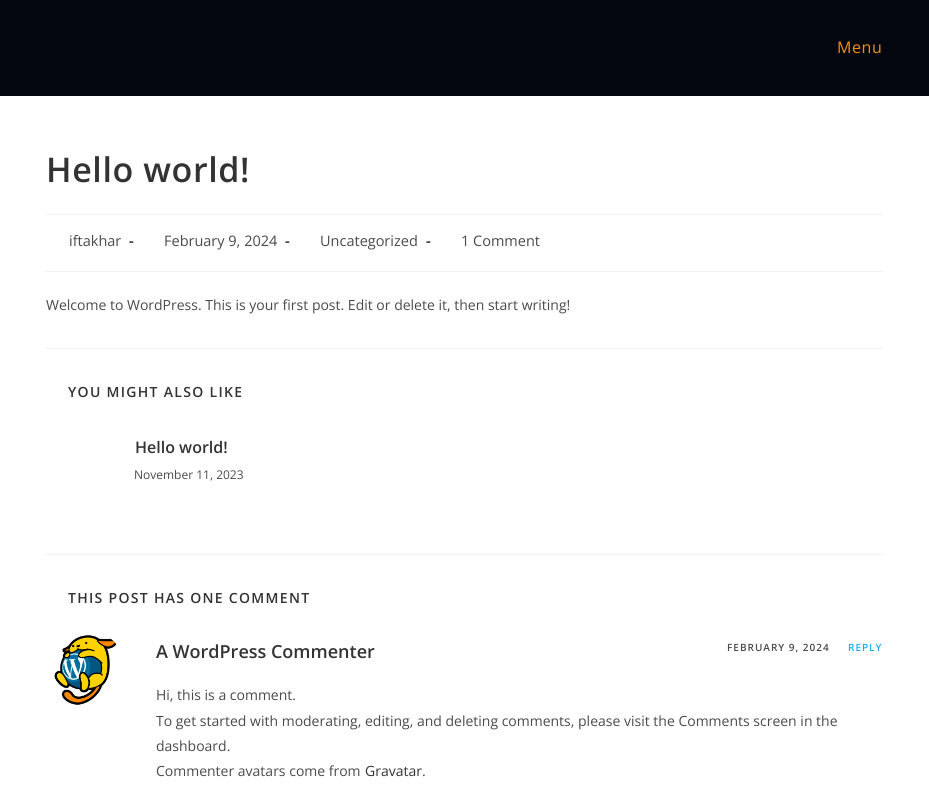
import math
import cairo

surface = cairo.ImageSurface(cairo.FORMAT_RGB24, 929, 786)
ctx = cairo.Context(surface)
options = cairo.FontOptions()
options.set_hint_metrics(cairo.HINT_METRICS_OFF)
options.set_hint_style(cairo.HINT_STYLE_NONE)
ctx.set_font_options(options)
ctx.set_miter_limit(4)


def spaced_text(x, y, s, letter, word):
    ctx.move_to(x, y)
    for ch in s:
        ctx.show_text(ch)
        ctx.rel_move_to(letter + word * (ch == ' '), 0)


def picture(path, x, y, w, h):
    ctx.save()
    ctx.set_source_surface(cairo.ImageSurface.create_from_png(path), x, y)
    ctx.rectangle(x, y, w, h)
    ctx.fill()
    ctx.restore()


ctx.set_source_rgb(1, 1, 1)
ctx.paint()
ctx.set_source_rgb(0.012, 0.027, 0.059)
ctx.rectangle(0, 0, 929, 96)
ctx.fill()
ctx.select_font_face("Open Sans")
ctx.set_font_size(16)
ctx.set_source_rgb(0.949, 0.569, 0.102)
spaced_text(837, 53, "Menu", 0.6, 0)
ctx.set_source_rgb(0.945, 0.945, 0.945)
ctx.rectangle(46, 214, 837, 1)
ctx.fill()
ctx.select_font_face("Open Sans SemiBold")
ctx.set_font_size(34)
ctx.set_source_rgb(0.2, 0.2, 0.2)
spaced_text(46, 182, "Hello world!", 0.6, 0)
ctx.set_source_rgb(0.945, 0.945, 0.945)
ctx.rectangle(46, 271, 837, 1)
ctx.fill()
ctx.select_font_face("Open Sans")
ctx.set_font_size(14.5)
ctx.set_source_rgb(0.29, 0.29, 0.29)
ctx.move_to(69, 246)
ctx.show_text("iftakhar")
ctx.select_font_face("Open Sans", cairo.FONT_SLANT_NORMAL, cairo.FONT_WEIGHT_BOLD)
ctx.move_to(129, 246)
ctx.show_text("-")
ctx.select_font_face("Open Sans")
ctx.move_to(164, 246)
ctx.show_text("February 9, 2024")
ctx.select_font_face("Open Sans", cairo.FONT_SLANT_NORMAL, cairo.FONT_WEIGHT_BOLD)
ctx.move_to(285, 246)
ctx.show_text("-")
ctx.select_font_face("Open Sans")
ctx.move_to(320, 246)
ctx.show_text("Uncategorized")
ctx.select_font_face("Open Sans", cairo.FONT_SLANT_NORMAL, cairo.FONT_WEIGHT_BOLD)
ctx.move_to(426, 246)
ctx.show_text("-")
ctx.select_font_face("Open Sans")
ctx.move_to(461, 246)
ctx.show_text("1 Comment")
ctx.set_font_size(14)
ctx.move_to(46, 310)
ctx.show_text("Welcome to WordPress. This is your first post. Edit or delete it, then start writing!")
ctx.set_source_rgb(0.945, 0.945, 0.945)
ctx.rectangle(46, 348, 837, 1)
ctx.fill()
ctx.select_font_face("Open Sans SemiBold")
ctx.set_source_rgb(0.2, 0.2, 0.2)
spaced_text(68, 397, "YOU MIGHT ALSO LIKE", 1.3, 0)
ctx.set_font_size(16)
ctx.move_to(135, 453)
ctx.show_text("Hello world!")
ctx.select_font_face("Open Sans")
ctx.set_font_size(12)
ctx.set_source_rgb(0.29, 0.29, 0.29)
ctx.move_to(134, 479)
ctx.show_text("November 11, 2023")
ctx.set_source_rgb(0.945, 0.945, 0.945)
ctx.rectangle(46, 554, 837, 1)
ctx.fill()
ctx.select_font_face("Open Sans SemiBold")
ctx.set_font_size(14)
ctx.set_source_rgb(0.2, 0.2, 0.2)
spaced_text(68, 603, "THIS POST HAS ONE COMMENT", 1.3, 0)
picture("img1.png", 54, 635, 63, 70)
ctx.set_font_size(18)
ctx.move_to(156, 658)
ctx.show_text("A WordPress Commenter")
ctx.set_font_size(10)
ctx.set_source_rgb(0.29, 0.29, 0.29)
spaced_text(727, 651, "FEBRUARY 9, 2024", 1, 0)
ctx.set_source_rgb(0.075, 0.686, 0.941)
spaced_text(848, 651, "REPLY", 1, 0)
ctx.select_font_face("Open Sans")
ctx.set_font_size(14)
ctx.set_source_rgb(0.29, 0.29, 0.29)
ctx.move_to(156, 700)
ctx.show_text("Hi, this is a comment.")
ctx.move_to(156, 726)
ctx.show_text("To get started with moderating, editing, and deleting comments, please visit the Comments screen in the")
ctx.move_to(156, 751)
ctx.show_text("dashboard.")
ctx.move_to(156, 776)
ctx.show_text("Commenter avatars come from")
ctx.set_source_rgb(0.2, 0.2, 0.2)
ctx.move_to(365, 776)
ctx.show_text("Gravatar")
ctx.set_source_rgb(0.29, 0.29, 0.29)
ctx.move_to(422, 776)
ctx.show_text(".")
surface.write_to_png("page.png")
